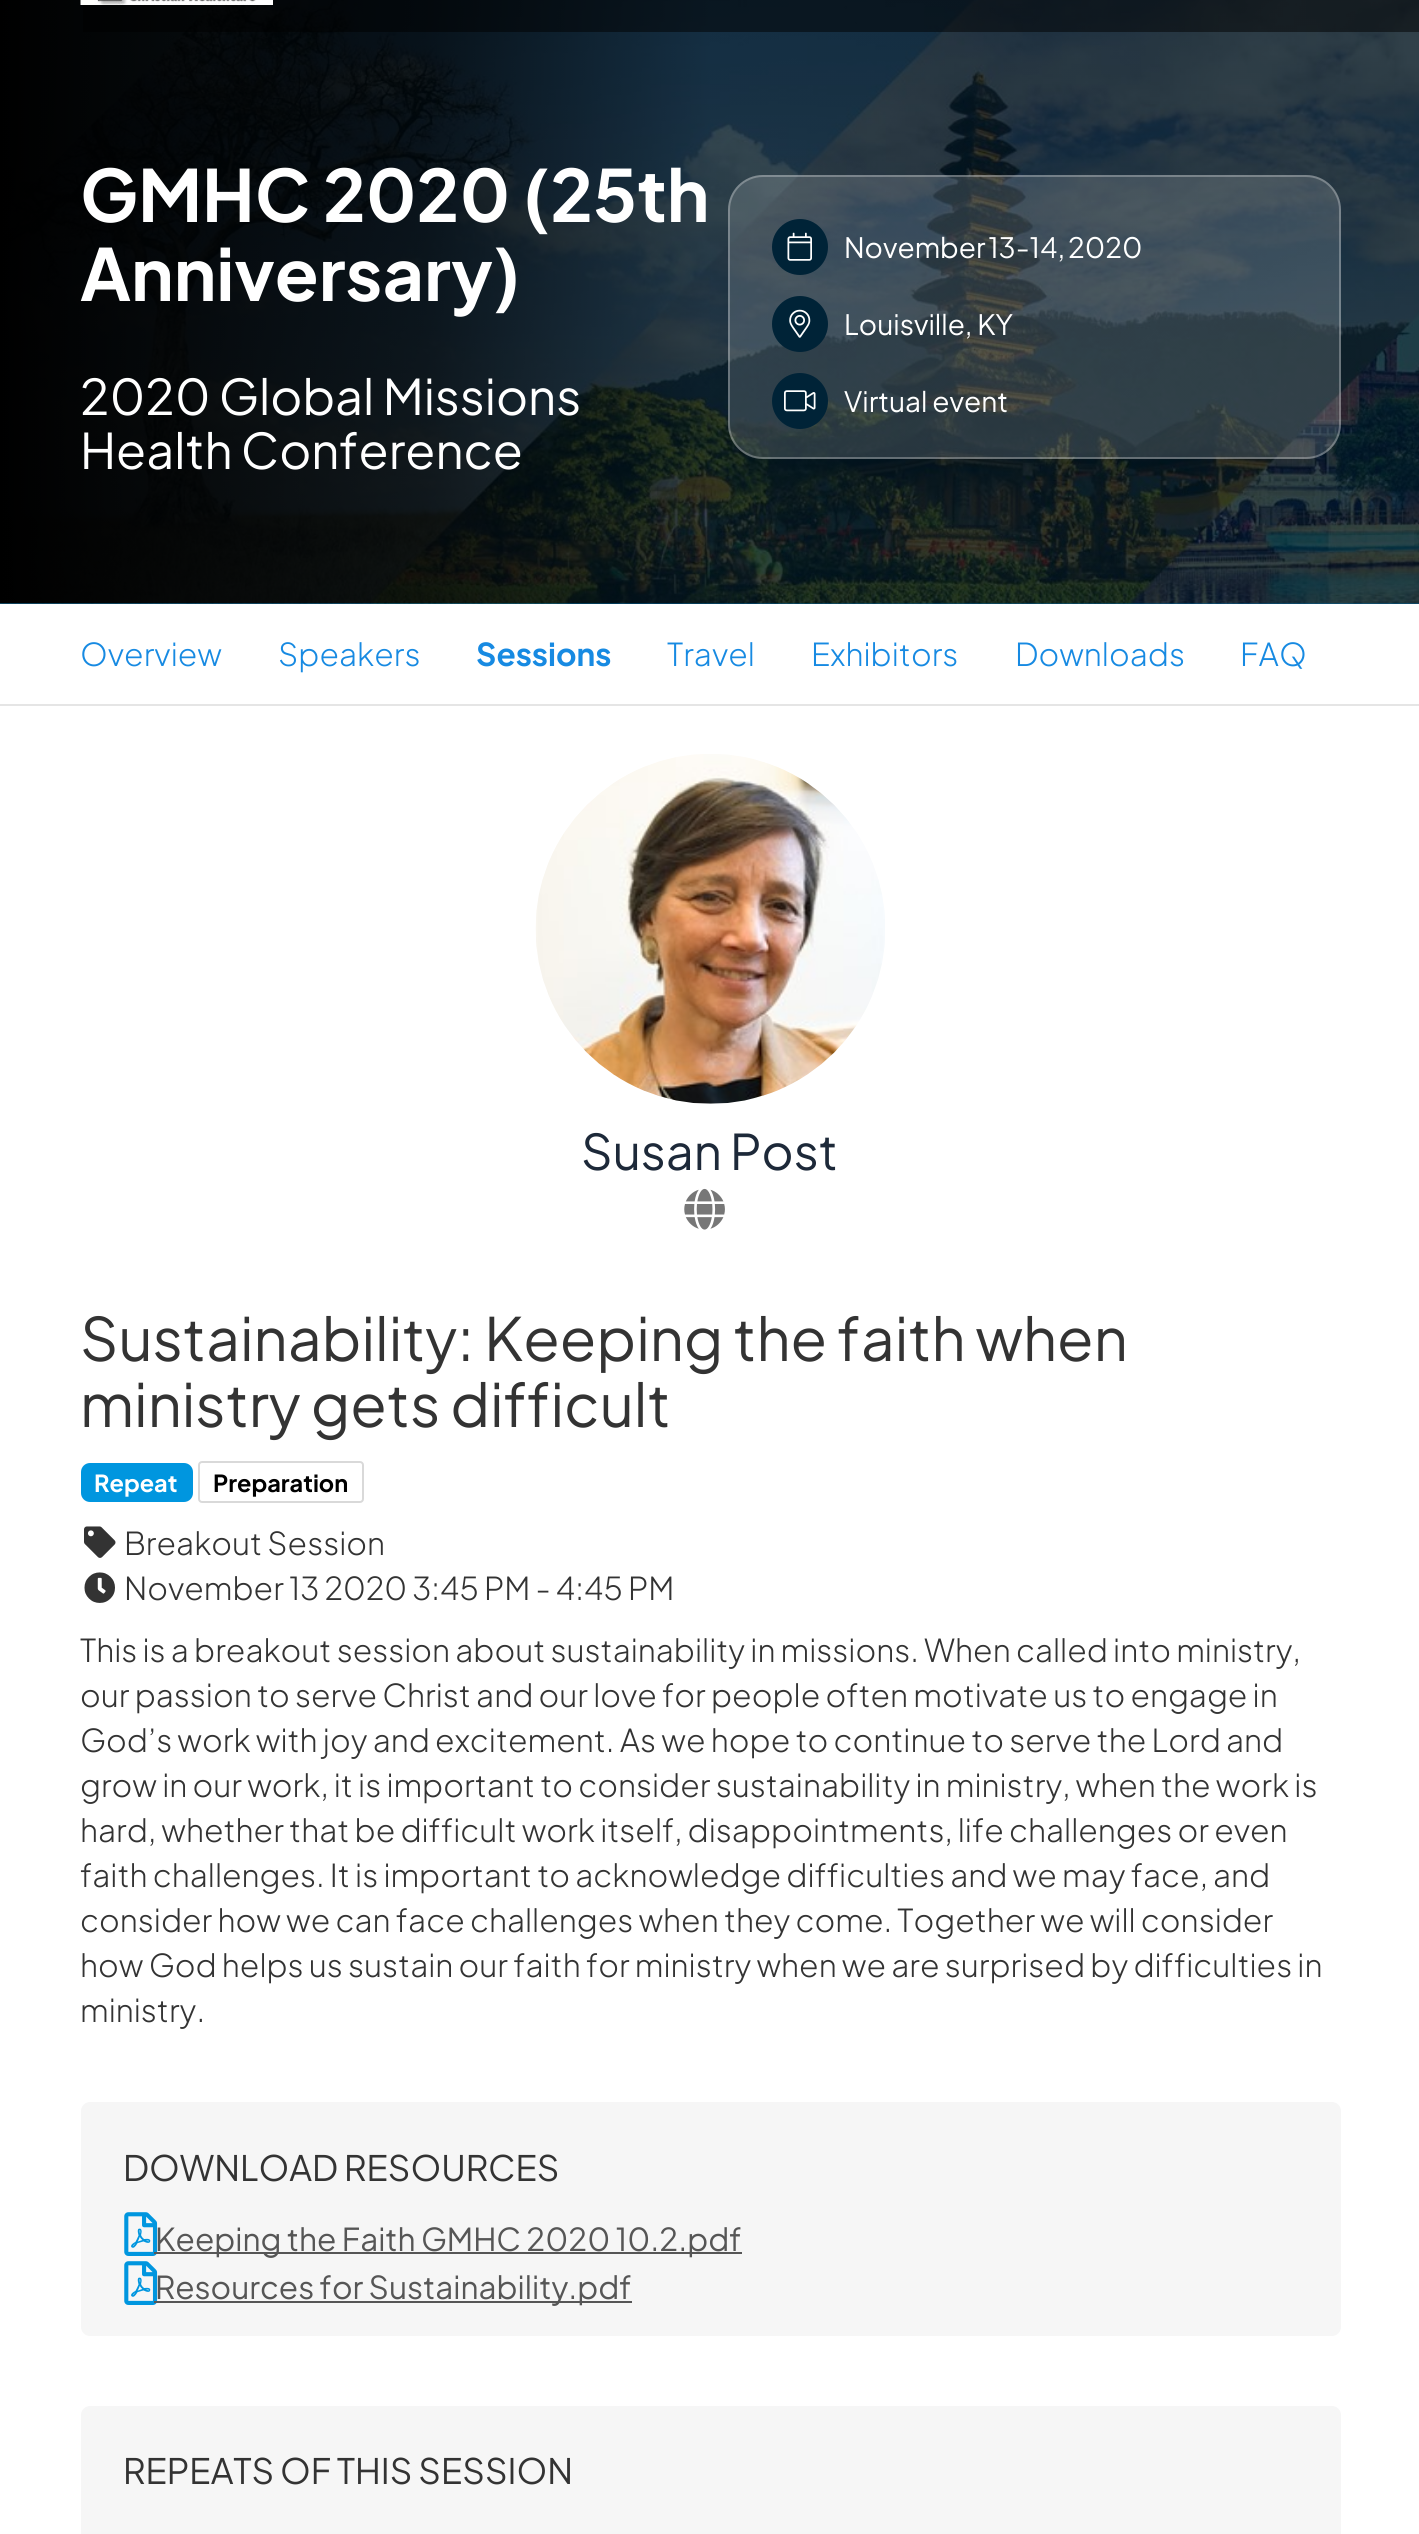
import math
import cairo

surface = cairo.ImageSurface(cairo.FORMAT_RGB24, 1419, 2534)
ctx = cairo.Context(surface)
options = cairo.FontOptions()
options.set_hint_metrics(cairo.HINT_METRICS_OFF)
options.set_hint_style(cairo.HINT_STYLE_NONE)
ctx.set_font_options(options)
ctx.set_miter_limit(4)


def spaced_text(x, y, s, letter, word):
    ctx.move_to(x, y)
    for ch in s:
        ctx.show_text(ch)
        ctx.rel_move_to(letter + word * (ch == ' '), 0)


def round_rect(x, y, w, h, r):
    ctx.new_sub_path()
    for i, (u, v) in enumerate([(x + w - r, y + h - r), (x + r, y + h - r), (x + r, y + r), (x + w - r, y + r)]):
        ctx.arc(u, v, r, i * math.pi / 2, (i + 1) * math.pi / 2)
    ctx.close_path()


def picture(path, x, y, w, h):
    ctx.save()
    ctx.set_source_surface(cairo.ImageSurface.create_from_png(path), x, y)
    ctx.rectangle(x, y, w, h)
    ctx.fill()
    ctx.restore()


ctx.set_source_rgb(1, 1, 1)
ctx.paint()
ctx.set_source_rgb(0, 0.255, 0.396)
ctx.rectangle(0, 603, 1419, 1)
ctx.fill()
picture("img2.png", 0, 0, 1419, 604)
ctx.set_source_rgba(0, 0, 0, 0.5)
ctx.rectangle(83, 0, 1336, 32)
ctx.fill()
picture("img1.png", 80, 0, 193, 5)
ctx.select_font_face("Plus Jakarta Sans", cairo.FONT_SLANT_NORMAL, cairo.FONT_WEIGHT_BOLD)
ctx.set_font_size(71.75)
ctx.set_source_rgb(1, 1, 1)
ctx.move_to(80, 222)
ctx.show_text("GMHC 2020 (25th")
ctx.move_to(80, 301)
ctx.show_text("Anniversary)")
ctx.select_font_face("Plus Jakarta Sans")
ctx.set_font_size(49)
ctx.move_to(80, 415)
ctx.show_text("2020 Global Missions")
ctx.move_to(80, 469)
ctx.show_text("Health Conference")
ctx.set_source_rgba(1, 1, 1, 0.15)
round_rect(728, 175, 613, 284, 35)
ctx.fill()
round_rect(729, 176, 611, 282, 34)
ctx.set_source_rgba(1, 1, 1, 0.28)
ctx.stroke()
ctx.set_source_rgb(0, 0.137, 0.216)
ctx.arc(800, 247, 28, 0, 2 * math.pi)
ctx.fill()
picture("img3.png", 787, 232, 25, 29)
ctx.set_font_size(28)
ctx.set_source_rgb(1, 1, 1)
spaced_text(844, 258, "November 13-14, 2020", 0, -2)
ctx.set_source_rgb(0, 0.137, 0.216)
ctx.new_path()
ctx.arc(800, 324, 28, 0, 2 * math.pi)
ctx.fill()
picture("img4.png", 789, 309, 22, 29)
ctx.set_source_rgb(1, 1, 1)
ctx.move_to(844, 335)
ctx.show_text("Louisville, KY")
ctx.set_source_rgb(0, 0.137, 0.216)
ctx.new_path()
ctx.arc(800, 401, 28, 0, 2 * math.pi)
ctx.fill()
picture("img5.png", 784, 390, 32, 22)
ctx.set_source_rgb(1, 1, 1)
ctx.move_to(844, 412)
ctx.show_text("Virtual event")
ctx.set_source_rgb(0.898, 0.898, 0.898)
ctx.rectangle(0, 704, 1419, 2)
ctx.fill()
ctx.select_font_face("Plus Jakarta Sans Light")
ctx.set_font_size(31.5)
ctx.set_source_rgb(0.09, 0.541, 0.886)
ctx.move_to(80, 666)
ctx.show_text("Overview")
ctx.move_to(278, 666)
ctx.show_text("Speakers")
ctx.select_font_face("Plus Jakarta Sans", cairo.FONT_SLANT_NORMAL, cairo.FONT_WEIGHT_BOLD)
ctx.move_to(476, 666)
ctx.show_text("Sessions")
ctx.select_font_face("Plus Jakarta Sans Light")
ctx.move_to(667, 666)
ctx.show_text("Travel")
ctx.move_to(811, 666)
ctx.show_text("Exhibitors")
ctx.move_to(1015, 666)
ctx.show_text("Downloads")
ctx.move_to(1240, 666)
ctx.show_text("FAQ")
picture("img6.png", 535, 754, 350, 350)
ctx.select_font_face("Plus Jakarta Sans")
ctx.set_font_size(49)
ctx.set_source_rgb(0.114, 0.161, 0.224)
ctx.move_to(581, 1170)
ctx.show_text("Susan Post")
picture("img7.png", 684, 1188, 41, 42)
ctx.set_font_size(59.5)
ctx.set_source_rgb(0.2, 0.2, 0.2)
ctx.move_to(80, 1361)
ctx.show_text("Sustainability: Keeping the faith when")
ctx.move_to(80, 1427)
ctx.show_text("ministry gets difficult")
ctx.set_source_rgb(0, 0.588, 0.875)
round_rect(81, 1463, 112, 39, 9)
ctx.fill()
ctx.select_font_face("Plus Jakarta Sans", cairo.FONT_SLANT_NORMAL, cairo.FONT_WEIGHT_BOLD)
ctx.set_font_size(23.5)
ctx.set_source_rgb(1, 1, 1)
ctx.move_to(94, 1492)
ctx.show_text("Repeat")
round_rect(199, 1462, 164, 40, 3)
ctx.set_source_rgb(0.851, 0.851, 0.851)
ctx.stroke()
ctx.set_source_rgb(0, 0, 0)
ctx.move_to(213, 1492)
ctx.show_text("Preparation")
picture("img8.png", 84, 1526, 32, 32)
ctx.select_font_face("Plus Jakarta Sans Light")
ctx.set_font_size(31.5)
ctx.set_source_rgb(0.2, 0.2, 0.2)
ctx.move_to(124, 1555)
ctx.show_text("Breakout Session")
picture("img9.png", 84, 1572, 31, 31)
ctx.move_to(124, 1600)
ctx.show_text("November 13 2020 3:45 PM - 4:45 PM")
ctx.move_to(80, 1662)
ctx.show_text("This is a breakout session about sustainability in missions. When called into ministry,")
ctx.move_to(80, 1707)
ctx.show_text("our passion to serve Christ and our love for people often motivate us to engage in")
ctx.move_to(80, 1752)
ctx.show_text("God’s work with joy and excitement. As we hope to continue to serve the Lord and")
ctx.move_to(80, 1797)
ctx.show_text("grow in our work, it is important to consider sustainability in ministry, when the work is")
ctx.move_to(80, 1842)
ctx.show_text("hard, whether that be difficult work itself, disappointments, life challenges or even")
ctx.move_to(80, 1887)
ctx.show_text("faith challenges. It is important to acknowledge difficulties and we may face, and")
ctx.move_to(80, 1932)
ctx.show_text("consider how we can face challenges when they come. Together we will consider")
ctx.move_to(80, 1977)
ctx.show_text("how God helps us sustain our faith for ministry when we are surprised by difficulties in")
ctx.move_to(80, 2022)
ctx.show_text("ministry.")
ctx.set_source_rgb(0.961, 0.961, 0.961)
round_rect(81, 2102, 1260, 234, 9)
ctx.fill()
ctx.select_font_face("Plus Jakarta Sans")
ctx.set_font_size(35)
ctx.set_source_rgb(0.2, 0.2, 0.2)
ctx.move_to(123, 2181)
ctx.show_text("DOWNLOAD RESOURCES")
picture("img10.png", 124, 2212, 34, 44)
ctx.set_source_rgb(0.337, 0.337, 0.337)
ctx.rectangle(154, 2252, 588, 2)
ctx.fill()
ctx.set_font_size(31.5)
ctx.move_to(155, 2251)
ctx.show_text("Keeping the Faith GMHC 2020 10.2.pdf")
picture("img10.png", 124, 2261, 34, 44)
ctx.rectangle(154, 2301, 478, 2)
ctx.fill()
ctx.move_to(155, 2299)
ctx.show_text("Resources for Sustainability.pdf")
ctx.set_source_rgb(0.961, 0.961, 0.961)
round_rect(81, 2406, 1260, 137, 9)
ctx.fill()
ctx.set_font_size(35)
ctx.set_source_rgb(0.2, 0.2, 0.2)
ctx.move_to(123, 2484)
ctx.show_text("REPEATS OF THIS SESSION")
surface.write_to_png("page.png")
